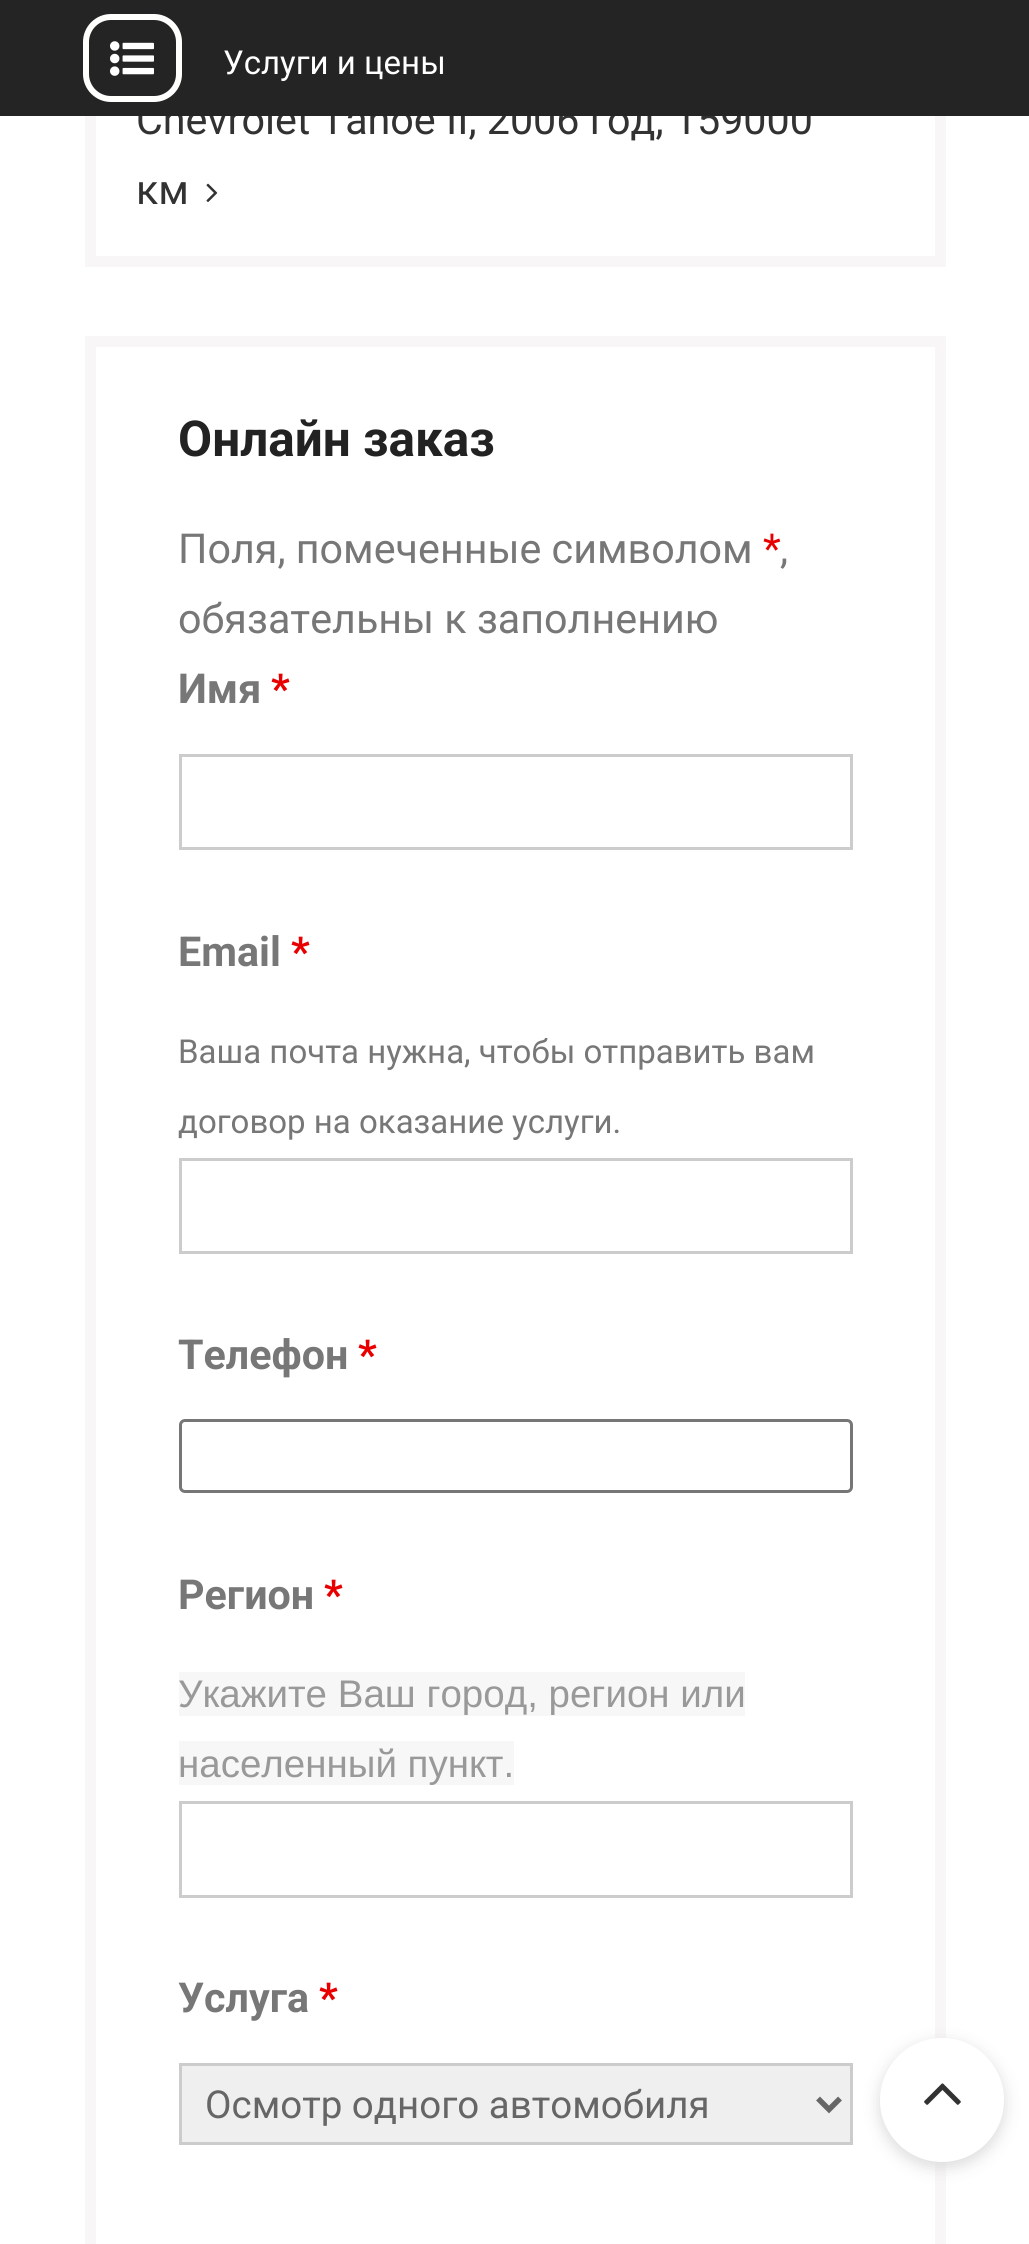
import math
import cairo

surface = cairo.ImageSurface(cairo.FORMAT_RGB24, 1029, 2244)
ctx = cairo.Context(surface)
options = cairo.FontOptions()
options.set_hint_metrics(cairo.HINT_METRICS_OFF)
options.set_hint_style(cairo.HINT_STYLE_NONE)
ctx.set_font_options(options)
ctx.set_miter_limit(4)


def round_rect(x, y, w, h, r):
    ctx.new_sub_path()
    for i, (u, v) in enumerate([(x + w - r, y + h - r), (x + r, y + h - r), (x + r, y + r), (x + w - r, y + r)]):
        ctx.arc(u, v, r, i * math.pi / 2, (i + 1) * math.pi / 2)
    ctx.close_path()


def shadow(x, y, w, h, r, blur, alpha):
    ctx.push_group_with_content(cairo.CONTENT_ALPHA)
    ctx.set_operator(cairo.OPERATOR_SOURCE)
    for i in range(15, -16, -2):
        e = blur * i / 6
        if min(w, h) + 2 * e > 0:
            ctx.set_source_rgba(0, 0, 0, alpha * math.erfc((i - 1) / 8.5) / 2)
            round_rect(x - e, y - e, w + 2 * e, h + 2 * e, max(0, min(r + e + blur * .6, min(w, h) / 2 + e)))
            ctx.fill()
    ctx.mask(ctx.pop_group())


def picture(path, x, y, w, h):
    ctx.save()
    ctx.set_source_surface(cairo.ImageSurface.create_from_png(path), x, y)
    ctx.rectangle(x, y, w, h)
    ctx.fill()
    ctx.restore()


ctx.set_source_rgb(1, 1, 1)
ctx.paint()
ctx.rectangle(90.5, 55.5, 850, 206)
ctx.set_source_rgb(0.969, 0.961, 0.961)
ctx.set_line_width(11)
ctx.stroke()
ctx.select_font_face("Roboto")
ctx.set_font_size(41.25)
ctx.set_source_rgb(0.196, 0.196, 0.196)
ctx.move_to(136, 134)
ctx.show_text("Chevrolet Tahoe II, 2006 год, 159000")
ctx.set_source_rgb(0.141, 0.141, 0.141)
ctx.rectangle(0, 0, 1029, 116)
ctx.fill()
round_rect(86, 17, 93, 82, 25)
ctx.set_source_rgb(1, 1, 0.996)
ctx.set_line_width(6)
ctx.stroke()
picture("img1.png", 110, 41, 44, 35)
ctx.set_font_size(33)
ctx.set_source_rgb(1, 1, 1)
ctx.move_to(223, 74)
ctx.show_text("Услуги и цены")
ctx.set_font_size(41.25)
ctx.set_source_rgb(0.196, 0.196, 0.196)
ctx.move_to(136, 204)
ctx.show_text("км")
picture("img2.png", 206, 183, 12, 19)
ctx.rectangle(90.5, 341.5, 850, 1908)
ctx.set_source_rgb(0.969, 0.961, 0.961)
ctx.set_line_width(11)
ctx.stroke()
ctx.select_font_face("Roboto", cairo.FONT_SLANT_NORMAL, cairo.FONT_WEIGHT_BOLD)
ctx.set_font_size(49.5)
ctx.set_source_rgb(0.133, 0.133, 0.133)
ctx.move_to(178, 456)
ctx.show_text("Онлайн заказ")
ctx.select_font_face("Roboto")
ctx.set_font_size(41.25)
ctx.set_source_rgb(0.467, 0.467, 0.467)
ctx.move_to(178, 563)
ctx.show_text("Поля, помеченные символом")
ctx.set_source_rgb(0.91, 0, 0)
ctx.move_to(763, 563)
ctx.show_text("*")
ctx.set_source_rgb(0.467, 0.467, 0.467)
ctx.move_to(780, 563)
ctx.show_text(",")
ctx.move_to(178, 633)
ctx.show_text("обязательны к заполнению")
ctx.select_font_face("Roboto", cairo.FONT_SLANT_NORMAL, cairo.FONT_WEIGHT_BOLD)
ctx.move_to(178, 703)
ctx.show_text("Имя")
ctx.set_source_rgb(0.91, 0, 0)
ctx.move_to(271, 703)
ctx.show_text("*")
ctx.rectangle(180.5, 755.5, 671, 93)
ctx.set_source_rgb(0.8, 0.8, 0.8)
ctx.set_line_width(3)
ctx.stroke()
ctx.set_source_rgb(0.467, 0.467, 0.467)
ctx.move_to(178, 966)
ctx.show_text("Email")
ctx.set_source_rgb(0.91, 0, 0)
ctx.move_to(291, 966)
ctx.show_text("*")
ctx.select_font_face("Roboto")
ctx.set_font_size(33)
ctx.set_source_rgb(0.467, 0.467, 0.467)
ctx.move_to(178, 1063)
ctx.show_text("Ваша почта нужна, чтобы отправить вам")
ctx.move_to(178, 1133)
ctx.show_text("договор на оказание услуги.")
ctx.rectangle(180.5, 1159.5, 671, 93)
ctx.set_source_rgb(0.8, 0.8, 0.8)
ctx.stroke()
ctx.select_font_face("Roboto", cairo.FONT_SLANT_NORMAL, cairo.FONT_WEIGHT_BOLD)
ctx.set_font_size(41.25)
ctx.set_source_rgb(0.467, 0.467, 0.467)
ctx.move_to(178, 1369)
ctx.show_text("Телефон")
ctx.set_source_rgb(0.91, 0, 0)
ctx.move_to(358, 1369)
ctx.show_text("*")
round_rect(180.5, 1420.5, 671, 71, 4.5)
ctx.set_source_rgb(0.463, 0.463, 0.463)
ctx.stroke()
ctx.set_source_rgb(0.467, 0.467, 0.467)
ctx.move_to(178, 1609)
ctx.show_text("Регион")
ctx.set_source_rgb(0.91, 0, 0)
ctx.move_to(324, 1609)
ctx.show_text("*")
ctx.set_source_rgb(0.965, 0.965, 0.965)
ctx.rectangle(179, 1672, 566, 44)
ctx.fill()
ctx.select_font_face("Liberation Sans")
ctx.set_font_size(38.5)
ctx.set_source_rgb(0.6, 0.6, 0.6)
ctx.move_to(178, 1707)
ctx.show_text("Укажите Ваш город, регион или")
ctx.set_source_rgb(0.965, 0.965, 0.965)
ctx.rectangle(179, 1741, 335, 44)
ctx.fill()
ctx.set_source_rgb(0.6, 0.6, 0.6)
ctx.move_to(178, 1777)
ctx.show_text("населенный пункт.")
ctx.rectangle(180.5, 1802.5, 671, 94)
ctx.set_source_rgb(0.8, 0.8, 0.8)
ctx.stroke()
ctx.select_font_face("Roboto", cairo.FONT_SLANT_NORMAL, cairo.FONT_WEIGHT_BOLD)
ctx.set_font_size(41.25)
ctx.set_source_rgb(0.467, 0.467, 0.467)
ctx.move_to(178, 2012)
ctx.show_text("Услуга")
ctx.set_source_rgb(0.91, 0, 0)
ctx.move_to(319, 2012)
ctx.show_text("*")
ctx.set_source_rgb(0.937, 0.937, 0.937)
ctx.rectangle(180.5, 2064.5, 671, 79)
ctx.fill_preserve()
ctx.set_source_rgb(0.8, 0.8, 0.8)
ctx.stroke()
ctx.new_path()
ctx.move_to(818, 2098.5)
ctx.line_to(829, 2109.5)
ctx.line_to(840, 2098.5)
ctx.set_source_rgb(0.4, 0.4, 0.4)
ctx.set_line_width(5.5)
ctx.stroke()
ctx.select_font_face("Roboto")
ctx.set_font_size(38.5)
ctx.move_to(205, 2118)
ctx.show_text("Осмотр одного автомобиля")
ctx.set_source_rgb(0.855, 0.855, 0.855)
shadow(880, 2043, 124, 124, 62, 8, 1)
ctx.set_source_rgb(1, 1, 1)
ctx.arc(942, 2100, 62, 0, 2 * math.pi)
ctx.fill()
picture("img3.png", 924, 2083, 37, 22)
surface.write_to_png("page.png")
